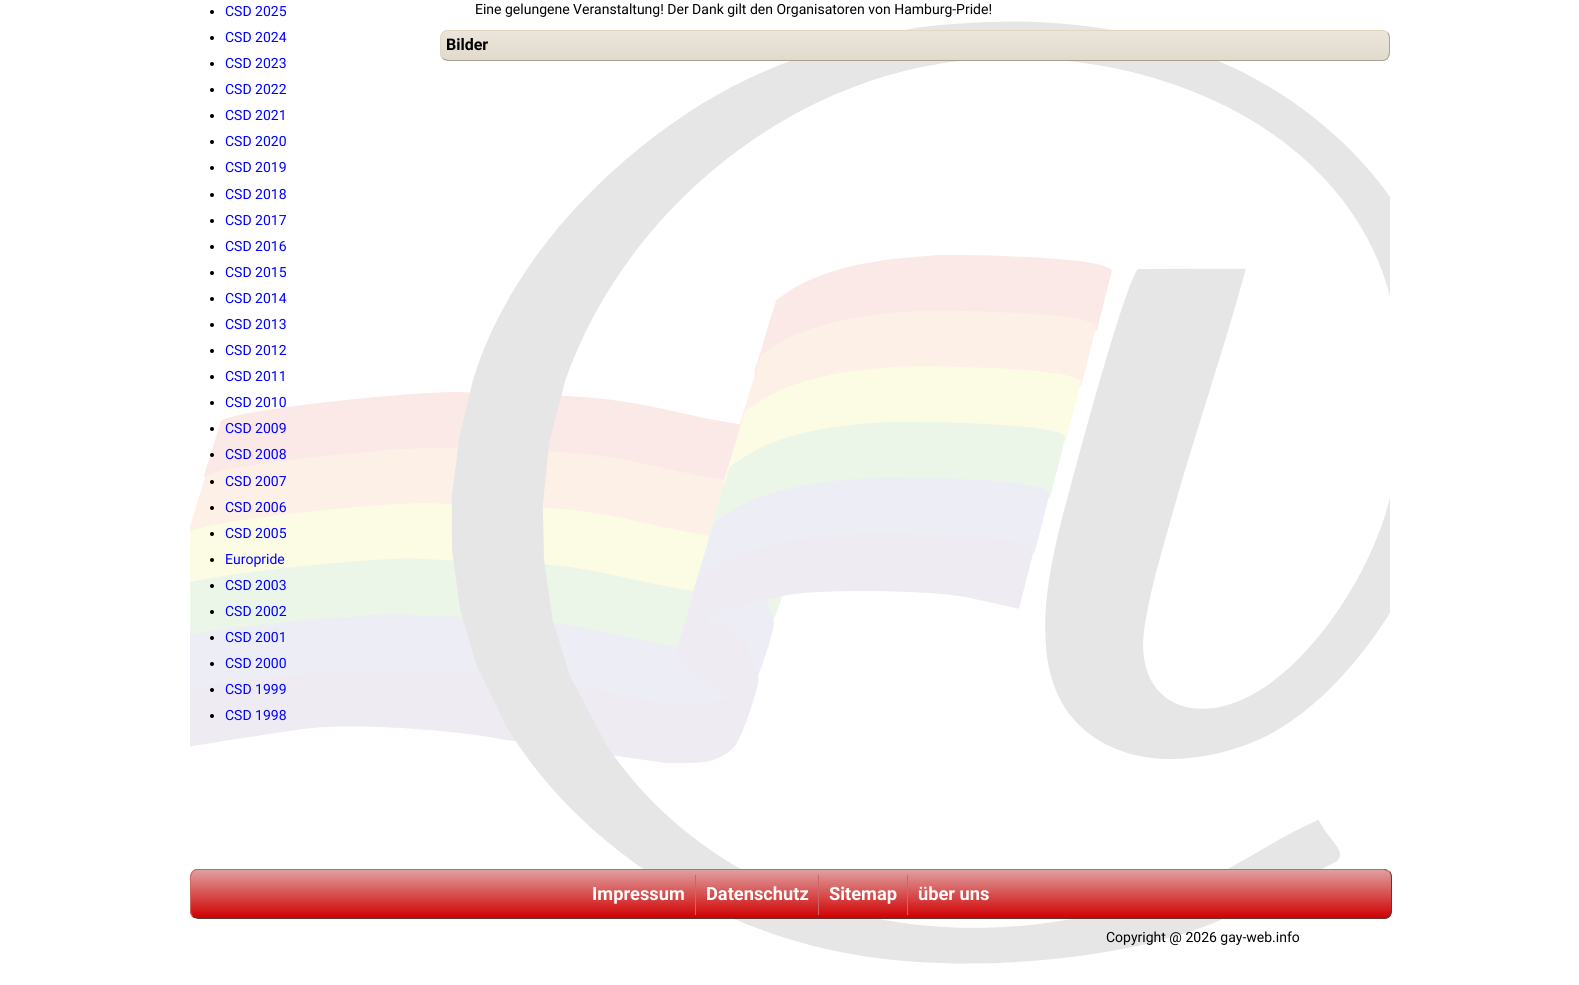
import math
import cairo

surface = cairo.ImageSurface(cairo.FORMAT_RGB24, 1579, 985)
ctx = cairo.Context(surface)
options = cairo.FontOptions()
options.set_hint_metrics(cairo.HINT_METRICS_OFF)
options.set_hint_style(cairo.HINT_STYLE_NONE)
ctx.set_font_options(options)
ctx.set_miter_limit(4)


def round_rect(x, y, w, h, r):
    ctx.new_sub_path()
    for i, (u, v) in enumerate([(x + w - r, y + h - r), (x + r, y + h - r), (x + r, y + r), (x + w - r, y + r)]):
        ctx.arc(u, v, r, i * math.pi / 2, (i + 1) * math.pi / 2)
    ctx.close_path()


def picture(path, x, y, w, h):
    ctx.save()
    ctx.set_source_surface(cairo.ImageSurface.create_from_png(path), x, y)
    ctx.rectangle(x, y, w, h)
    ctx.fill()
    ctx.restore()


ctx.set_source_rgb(1, 1, 1)
ctx.paint()
picture("img1.png", 190, 21, 1200, 943)
ctx.set_source_rgb(0, 0, 0)
ctx.arc(212, 12, 2, 0, 2 * math.pi)
ctx.fill()
ctx.select_font_face("Roboto")
ctx.set_font_size(14)
ctx.set_source_rgb(0, 0, 1)
ctx.move_to(225, 16)
ctx.show_text("CSD 2025")
ctx.set_source_rgb(0, 0, 0)
ctx.new_path()
ctx.arc(212, 38, 2, 0, 2 * math.pi)
ctx.fill()
ctx.set_source_rgb(0, 0, 1)
ctx.move_to(225, 42)
ctx.show_text("CSD 2024")
ctx.set_source_rgb(0, 0, 0)
ctx.new_path()
ctx.arc(212, 64, 2, 0, 2 * math.pi)
ctx.fill()
ctx.set_source_rgb(0, 0, 1)
ctx.move_to(225, 68)
ctx.show_text("CSD 2023")
ctx.set_source_rgb(0, 0, 0)
ctx.new_path()
ctx.arc(212, 90, 2, 0, 2 * math.pi)
ctx.fill()
ctx.set_source_rgb(0, 0, 1)
ctx.move_to(225, 94)
ctx.show_text("CSD 2022")
ctx.set_source_rgb(0, 0, 0)
ctx.new_path()
ctx.arc(212, 116, 2, 0, 2 * math.pi)
ctx.fill()
ctx.set_source_rgb(0, 0, 1)
ctx.move_to(225, 120)
ctx.show_text("CSD 2021")
ctx.set_source_rgb(0, 0, 0)
ctx.new_path()
ctx.arc(212, 142, 2, 0, 2 * math.pi)
ctx.fill()
ctx.set_source_rgb(0, 0, 1)
ctx.move_to(225, 146)
ctx.show_text("CSD 2020")
ctx.set_source_rgb(0, 0, 0)
ctx.new_path()
ctx.arc(212, 168, 2, 0, 2 * math.pi)
ctx.fill()
ctx.set_source_rgb(0, 0, 1)
ctx.move_to(225, 172)
ctx.show_text("CSD 2019")
ctx.set_source_rgb(0, 0, 0)
ctx.new_path()
ctx.arc(212, 195, 2, 0, 2 * math.pi)
ctx.fill()
ctx.set_source_rgb(0, 0, 1)
ctx.move_to(225, 199)
ctx.show_text("CSD 2018")
ctx.set_source_rgb(0, 0, 0)
ctx.new_path()
ctx.arc(212, 221, 2, 0, 2 * math.pi)
ctx.fill()
ctx.set_source_rgb(0, 0, 1)
ctx.move_to(225, 225)
ctx.show_text("CSD 2017")
ctx.set_source_rgb(0, 0, 0)
ctx.new_path()
ctx.arc(212, 247, 2, 0, 2 * math.pi)
ctx.fill()
ctx.set_source_rgb(0, 0, 1)
ctx.move_to(225, 251)
ctx.show_text("CSD 2016")
ctx.set_source_rgb(0, 0, 0)
ctx.new_path()
ctx.arc(212, 273, 2, 0, 2 * math.pi)
ctx.fill()
ctx.set_source_rgb(0, 0, 1)
ctx.move_to(225, 277)
ctx.show_text("CSD 2015")
ctx.set_source_rgb(0, 0, 0)
ctx.new_path()
ctx.arc(212, 299, 2, 0, 2 * math.pi)
ctx.fill()
ctx.set_source_rgb(0, 0, 1)
ctx.move_to(225, 303)
ctx.show_text("CSD 2014")
ctx.set_source_rgb(0, 0, 0)
ctx.new_path()
ctx.arc(212, 325, 2, 0, 2 * math.pi)
ctx.fill()
ctx.set_source_rgb(0, 0, 1)
ctx.move_to(225, 329)
ctx.show_text("CSD 2013")
ctx.set_source_rgb(0, 0, 0)
ctx.new_path()
ctx.arc(212, 351, 2, 0, 2 * math.pi)
ctx.fill()
ctx.set_source_rgb(0, 0, 1)
ctx.move_to(225, 355)
ctx.show_text("CSD 2012")
ctx.set_source_rgb(0, 0, 0)
ctx.new_path()
ctx.arc(212, 377, 2, 0, 2 * math.pi)
ctx.fill()
ctx.set_source_rgb(0, 0, 1)
ctx.move_to(225, 381)
ctx.show_text("CSD 2011")
ctx.set_source_rgb(0, 0, 0)
ctx.new_path()
ctx.arc(212, 403, 2, 0, 2 * math.pi)
ctx.fill()
ctx.set_source_rgb(0, 0, 1)
ctx.move_to(225, 407)
ctx.show_text("CSD 2010")
ctx.set_source_rgb(0, 0, 0)
ctx.new_path()
ctx.arc(212, 429, 2, 0, 2 * math.pi)
ctx.fill()
ctx.set_source_rgb(0, 0, 1)
ctx.move_to(225, 433)
ctx.show_text("CSD 2009")
ctx.set_source_rgb(0, 0, 0)
ctx.new_path()
ctx.arc(212, 455, 2, 0, 2 * math.pi)
ctx.fill()
ctx.set_source_rgb(0, 0, 1)
ctx.move_to(225, 459)
ctx.show_text("CSD 2008")
ctx.set_source_rgb(0, 0, 0)
ctx.new_path()
ctx.arc(212, 482, 2, 0, 2 * math.pi)
ctx.fill()
ctx.set_source_rgb(0, 0, 1)
ctx.move_to(225, 486)
ctx.show_text("CSD 2007")
ctx.set_source_rgb(0, 0, 0)
ctx.new_path()
ctx.arc(212, 508, 2, 0, 2 * math.pi)
ctx.fill()
ctx.set_source_rgb(0, 0, 1)
ctx.move_to(225, 512)
ctx.show_text("CSD 2006")
ctx.set_source_rgb(0, 0, 0)
ctx.new_path()
ctx.arc(212, 534, 2, 0, 2 * math.pi)
ctx.fill()
ctx.set_source_rgb(0, 0, 1)
ctx.move_to(225, 538)
ctx.show_text("CSD 2005")
ctx.set_source_rgb(0, 0, 0)
ctx.new_path()
ctx.arc(212, 560, 2, 0, 2 * math.pi)
ctx.fill()
ctx.set_source_rgb(0, 0, 1)
ctx.move_to(225, 564)
ctx.show_text("Europride")
ctx.set_source_rgb(0, 0, 0)
ctx.new_path()
ctx.arc(212, 586, 2, 0, 2 * math.pi)
ctx.fill()
ctx.set_source_rgb(0, 0, 1)
ctx.move_to(225, 590)
ctx.show_text("CSD 2003")
ctx.set_source_rgb(0, 0, 0)
ctx.new_path()
ctx.arc(212, 612, 2, 0, 2 * math.pi)
ctx.fill()
ctx.set_source_rgb(0, 0, 1)
ctx.move_to(225, 616)
ctx.show_text("CSD 2002")
ctx.set_source_rgb(0, 0, 0)
ctx.new_path()
ctx.arc(212, 638, 2, 0, 2 * math.pi)
ctx.fill()
ctx.set_source_rgb(0, 0, 1)
ctx.move_to(225, 642)
ctx.show_text("CSD 2001")
ctx.set_source_rgb(0, 0, 0)
ctx.new_path()
ctx.arc(212, 664, 2, 0, 2 * math.pi)
ctx.fill()
ctx.set_source_rgb(0, 0, 1)
ctx.move_to(225, 668)
ctx.show_text("CSD 2000")
ctx.set_source_rgb(0, 0, 0)
ctx.new_path()
ctx.arc(212, 690, 2, 0, 2 * math.pi)
ctx.fill()
ctx.set_source_rgb(0, 0, 1)
ctx.move_to(225, 694)
ctx.show_text("CSD 1999")
ctx.set_source_rgb(0, 0, 0)
ctx.new_path()
ctx.arc(212, 716, 2, 0, 2 * math.pi)
ctx.fill()
ctx.set_source_rgb(0, 0, 1)
ctx.move_to(225, 720)
ctx.show_text("CSD 1998")
ctx.set_source_rgb(0, 0, 0)
ctx.move_to(475, 14)
ctx.show_text("Eine gelungene Veranstaltung! Der Dank gilt den Organisatoren von Hamburg-Pride!")
ctx.save()
round_rect(440, 30, 950, 31, 8)
ctx.clip()
gradient = cairo.LinearGradient(915, 2, 915, 31)
gradient.add_color_stop_rgba(0, 0.922, 0.898, 0.859, 1)
gradient.add_color_stop_rgba(1, 0.882, 0.855, 0.808, 1)
ctx.set_source(gradient)
ctx.rectangle(440, 30, 950, 1)
ctx.fill()
gradient = cairo.LinearGradient(915, 31, 915, 60)
gradient.add_color_stop_rgba(0, 0.922, 0.898, 0.859, 1)
gradient.add_color_stop_rgba(1, 0.882, 0.855, 0.808, 1)
ctx.set_source(gradient)
ctx.rectangle(440, 31, 950, 29)
ctx.fill()
gradient = cairo.LinearGradient(915, 60, 915, 89)
gradient.add_color_stop_rgba(0, 0.922, 0.898, 0.859, 1)
gradient.add_color_stop_rgba(1, 0.882, 0.855, 0.808, 1)
ctx.set_source(gradient)
ctx.rectangle(440, 60, 950, 1)
ctx.fill()
ctx.restore()
ctx.save()
ctx.rectangle(440, 0, 950, 849)
ctx.clip()
ctx.new_path()
ctx.move_to(1387.5, 32.5)
ctx.curve_to(1390.5, 36, 1389.5, 41.5, 1389.5, 45.5)
ctx.curve_to(1389.5, 51.5, 1390.5, 60.5, 1382, 60.5)
ctx.line_to(448, 60.5)
ctx.line_to(444.5, 59.5)
ctx.line_to(442.5, 58.5)
ctx.set_source_rgb(0.675, 0.624, 0.545)
ctx.set_line_width(1)
ctx.stroke()
ctx.new_path()
ctx.move_to(442.5, 58.5)
ctx.curve_to(439.5, 55, 440.5, 49.5, 440.5, 45.5)
ctx.curve_to(440.5, 39.5, 439.5, 30.5, 448, 30.5)
ctx.line_to(1382, 30.5)
ctx.line_to(1385.5, 31.5)
ctx.line_to(1387.5, 32.5)
ctx.set_source_rgb(0.89, 0.843, 0.765)
ctx.stroke()
ctx.restore()
ctx.select_font_face("Roboto", cairo.FONT_SLANT_NORMAL, cairo.FONT_WEIGHT_BOLD)
ctx.set_font_size(16)
ctx.move_to(446, 50)
ctx.show_text("Bilder")
ctx.save()
round_rect(190, 869, 1202, 50, 8)
ctx.clip()
gradient = cairo.LinearGradient(791, 822, 791, 870)
gradient.add_color_stop_rgba(0, 0.878, 0.627, 0.627, 1)
gradient.add_color_stop_rgba(1, 0.816, 0, 0, 1)
ctx.set_source(gradient)
ctx.rectangle(190, 869, 1202, 1)
ctx.fill()
gradient = cairo.LinearGradient(791, 870, 791, 918)
gradient.add_color_stop_rgba(0, 0.878, 0.627, 0.627, 1)
gradient.add_color_stop_rgba(1, 0.816, 0, 0, 1)
ctx.set_source(gradient)
ctx.rectangle(190, 870, 1202, 48)
ctx.fill()
gradient = cairo.LinearGradient(791, 918, 791, 966)
gradient.add_color_stop_rgba(0, 0.878, 0.627, 0.627, 1)
gradient.add_color_stop_rgba(1, 0.816, 0, 0, 1)
ctx.set_source(gradient)
ctx.rectangle(190, 918, 1202, 1)
ctx.fill()
ctx.restore()
ctx.new_path()
ctx.move_to(1389.5, 871.5)
ctx.curve_to(1392, 874.5, 1391.5, 879, 1391.5, 882.5)
ctx.line_to(1391.5, 905.5)
ctx.curve_to(1391.5, 911, 1392, 918.5, 1384, 918.5)
ctx.line_to(198, 918.5)
ctx.line_to(194, 917)
ctx.line_to(192.5, 916.5)
ctx.set_source_rgb(0.4, 0.2, 0.2)
ctx.set_line_width(1)
ctx.stroke()
ctx.new_path()
ctx.move_to(192.5, 916.5)
ctx.curve_to(190, 913.5, 190.5, 909, 190.5, 905.5)
ctx.line_to(190.5, 882.5)
ctx.curve_to(190.5, 877, 190, 869.5, 198, 869.5)
ctx.line_to(1384, 869.5)
ctx.line_to(1388, 871)
ctx.line_to(1389.5, 871.5)
ctx.set_source_rgb(0.8, 0.4, 0.4)
ctx.stroke()
ctx.set_font_size(18.25)
ctx.set_source_rgb(1, 1, 1)
ctx.move_to(592, 900)
ctx.show_text("Impressum")
ctx.move_to(706, 900)
ctx.show_text("Datenschutz")
ctx.set_source_rgb(0.8, 0.4, 0.4)
ctx.rectangle(695, 875, 1, 40)
ctx.fill()
ctx.set_source_rgb(1, 1, 1)
ctx.move_to(829, 900)
ctx.show_text("Sitemap")
ctx.set_source_rgb(0.8, 0.4, 0.4)
ctx.rectangle(818, 875, 1, 40)
ctx.fill()
ctx.set_source_rgb(1, 1, 1)
ctx.move_to(918, 900)
ctx.show_text("über uns")
ctx.set_source_rgb(0.8, 0.4, 0.4)
ctx.rectangle(907, 875, 1, 40)
ctx.fill()
ctx.select_font_face("Roboto")
ctx.set_font_size(14)
ctx.set_source_rgb(0, 0, 0)
ctx.move_to(1106, 942)
ctx.show_text("Copyright @ 2026 gay-web.info")
surface.write_to_png("page.png")
